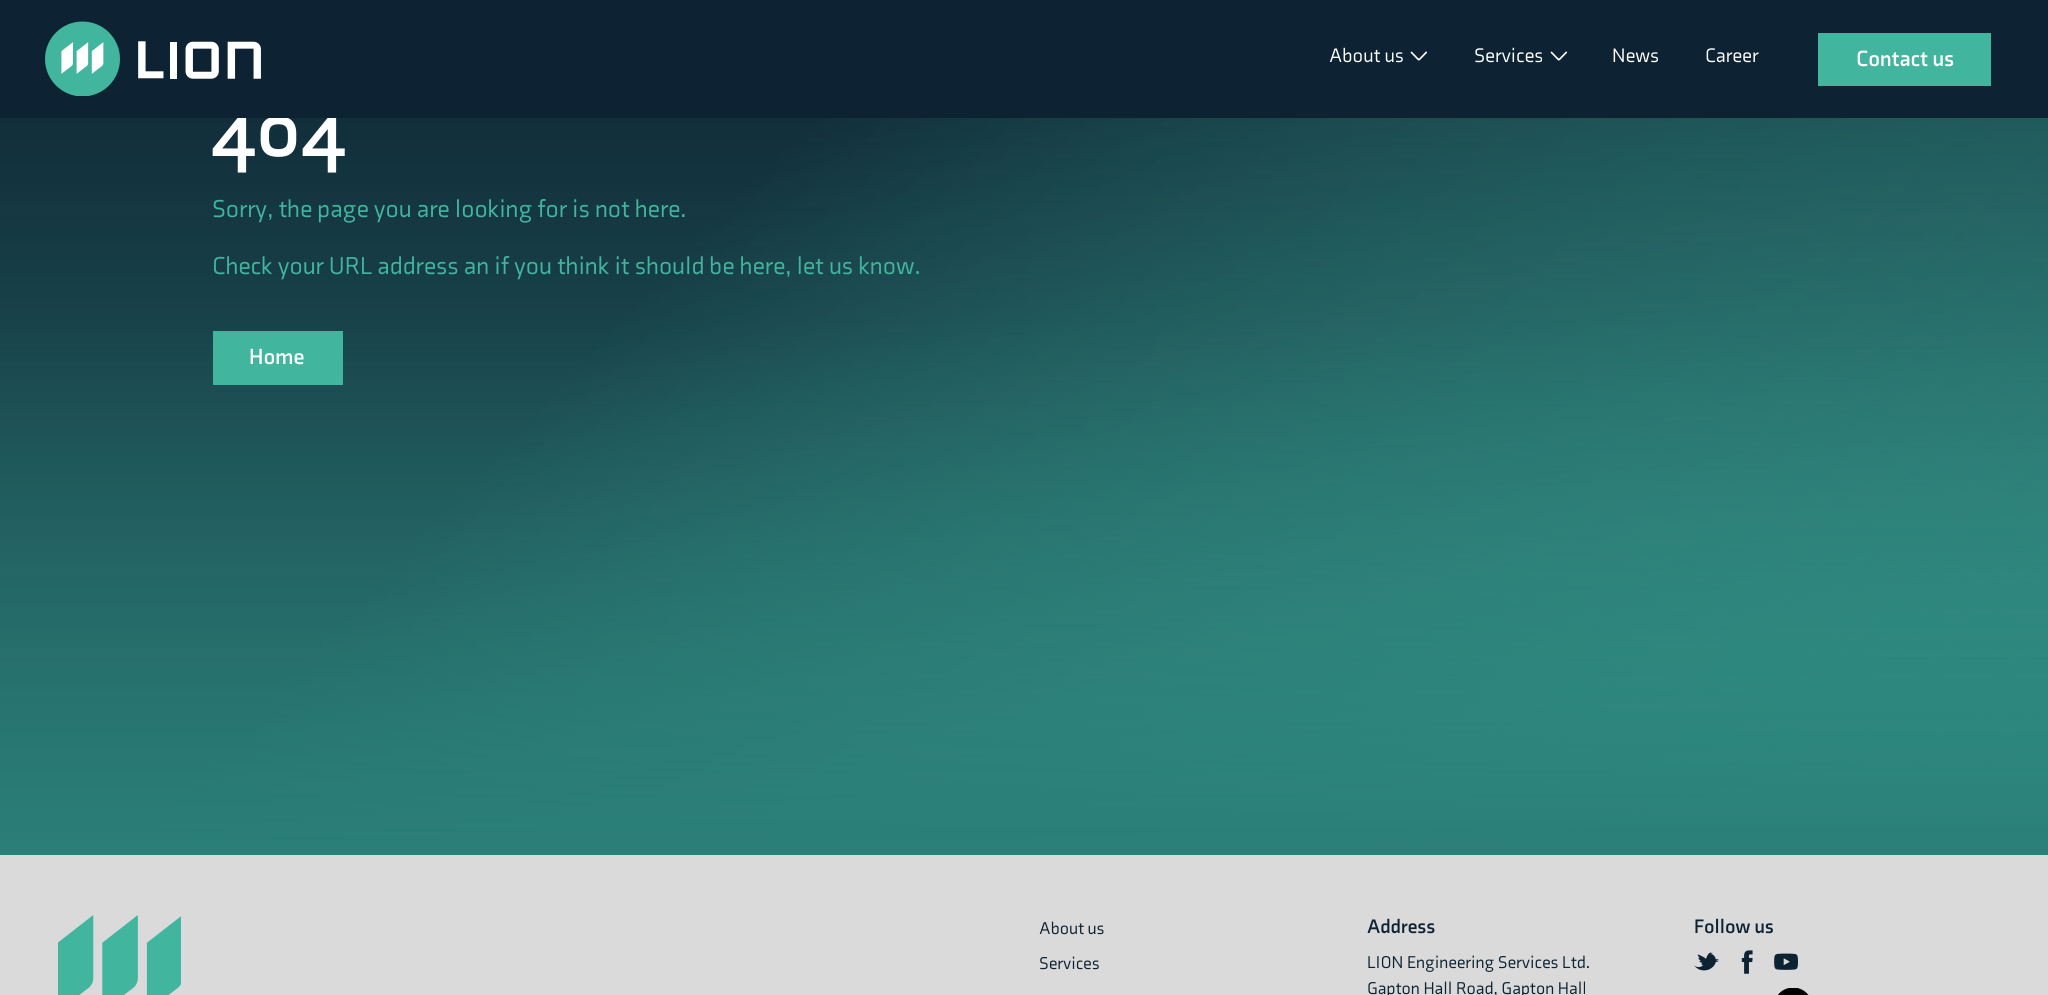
import math
import cairo

surface = cairo.ImageSurface(cairo.FORMAT_RGB24, 2048, 995)
ctx = cairo.Context(surface)
options = cairo.FontOptions()
options.set_hint_metrics(cairo.HINT_METRICS_OFF)
options.set_hint_style(cairo.HINT_STYLE_NONE)
ctx.set_font_options(options)
ctx.set_miter_limit(4)


def picture(path, x, y, w, h):
    ctx.save()
    ctx.set_source_surface(cairo.ImageSurface.create_from_png(path), x, y)
    ctx.rectangle(x, y, w, h)
    ctx.fill()
    ctx.restore()


ctx.set_source_rgb(0.855, 0.855, 0.855)
ctx.paint()
gradient = cairo.LinearGradient(1024, 855, 1024, -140)
gradient.add_color_stop_rgba(0, 0.165, 0.498, 0.471, 1)
gradient.add_color_stop_rgba(0.54, 0.094, 0.255, 0.286, 1)
gradient.add_color_stop_rgba(0.86, 0.051, 0.129, 0.192, 1)
ctx.set_source(gradient)
ctx.rectangle(133, 118, 1915, 733)
ctx.fill()
gradient = cairo.LinearGradient(228, -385, 1820, 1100)
gradient.add_color_stop_rgba(0.35, 0.051, 0.133, 0.196, 1)
gradient.add_color_stop_rgba(1, 0.231, 0.651, 0.58, 0.24)
ctx.set_source(gradient)
ctx.rectangle(0, 118, 2048, 733)
ctx.fill()
gradient = cairo.LinearGradient(1024, 855, 1024, -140)
gradient.add_color_stop_rgba(0, 0.165, 0.498, 0.471, 1)
gradient.add_color_stop_rgba(0.54, 0.231, 0.651, 0.58, 0.24)
gradient.add_color_stop_rgba(0.86, 0.231, 0.651, 0.58, 0)
ctx.set_source(gradient)
ctx.rectangle(0, 118, 2048, 737)
ctx.fill()
ctx.select_font_face("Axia", cairo.FONT_SLANT_NORMAL, cairo.FONT_WEIGHT_BOLD)
ctx.set_font_size(82)
ctx.set_source_rgb(1, 1, 1)
ctx.move_to(212, 156)
ctx.show_text("404")
ctx.set_source_rgb(0.051, 0.133, 0.196)
ctx.rectangle(0, 0, 2048, 118)
ctx.fill()
picture("img1.png", 45, 21, 216, 75)
ctx.select_font_face("Axia")
ctx.set_font_size(20)
ctx.set_source_rgb(1, 1, 1)
ctx.move_to(1329, 62)
ctx.show_text("About us")
picture("img2.png", 1410, 51, 17, 10)
ctx.move_to(1474, 62)
ctx.show_text("Services")
picture("img2.png", 1550, 51, 17, 10)
ctx.move_to(1612, 62)
ctx.show_text("News")
ctx.move_to(1705, 62)
ctx.show_text("Career")
ctx.set_source_rgb(0.255, 0.71, 0.62)
ctx.rectangle(1818, 33, 173, 53)
ctx.fill()
ctx.select_font_face("Axia", cairo.FONT_SLANT_NORMAL, cairo.FONT_WEIGHT_BOLD)
ctx.set_font_size(22.5)
ctx.set_source_rgb(1, 1, 1)
ctx.move_to(1856, 66)
ctx.show_text("Contact us")
ctx.select_font_face("Axia")
ctx.set_font_size(25)
ctx.set_source_rgb(0.255, 0.71, 0.62)
ctx.move_to(212, 217)
ctx.show_text("Sorry, the page you are looking for is not here.")
ctx.move_to(212, 274)
ctx.show_text("Check your URL address an if you think it should be here, let us know.")
ctx.rectangle(213, 331, 130, 54)
ctx.fill()
ctx.select_font_face("Axia", cairo.FONT_SLANT_NORMAL, cairo.FONT_WEIGHT_BOLD)
ctx.set_font_size(22.5)
ctx.set_source_rgb(1, 1, 1)
ctx.move_to(249, 364)
ctx.show_text("Home")
picture("img3.png", 58, 915, 123, 80)
ctx.select_font_face("Axia")
ctx.set_font_size(17.5)
ctx.set_source_rgb(0.051, 0.133, 0.196)
ctx.move_to(1039, 934)
ctx.show_text("About us")
ctx.move_to(1039, 969)
ctx.show_text("Services")
ctx.select_font_face("Axia", cairo.FONT_SLANT_NORMAL, cairo.FONT_WEIGHT_BOLD)
ctx.set_font_size(20)
ctx.move_to(1367, 933)
ctx.show_text("Address")
ctx.select_font_face("Axia")
ctx.set_font_size(17.5)
ctx.move_to(1367, 968)
ctx.show_text("LION Engineering Services Ltd.")
ctx.move_to(1367, 994)
ctx.show_text("Gapton Hall Road, Gapton Hall")
ctx.select_font_face("Axia", cairo.FONT_SLANT_NORMAL, cairo.FONT_WEIGHT_BOLD)
ctx.set_font_size(20)
ctx.move_to(1694, 933)
ctx.show_text("Follow us")
picture("img4.png", 1694, 952, 25, 19)
picture("img5.png", 1741, 950, 12, 24)
picture("img6.png", 1774, 953, 24, 17)
picture("img7.png", 1778, 988, 31, 7)
surface.write_to_png("page.png")
